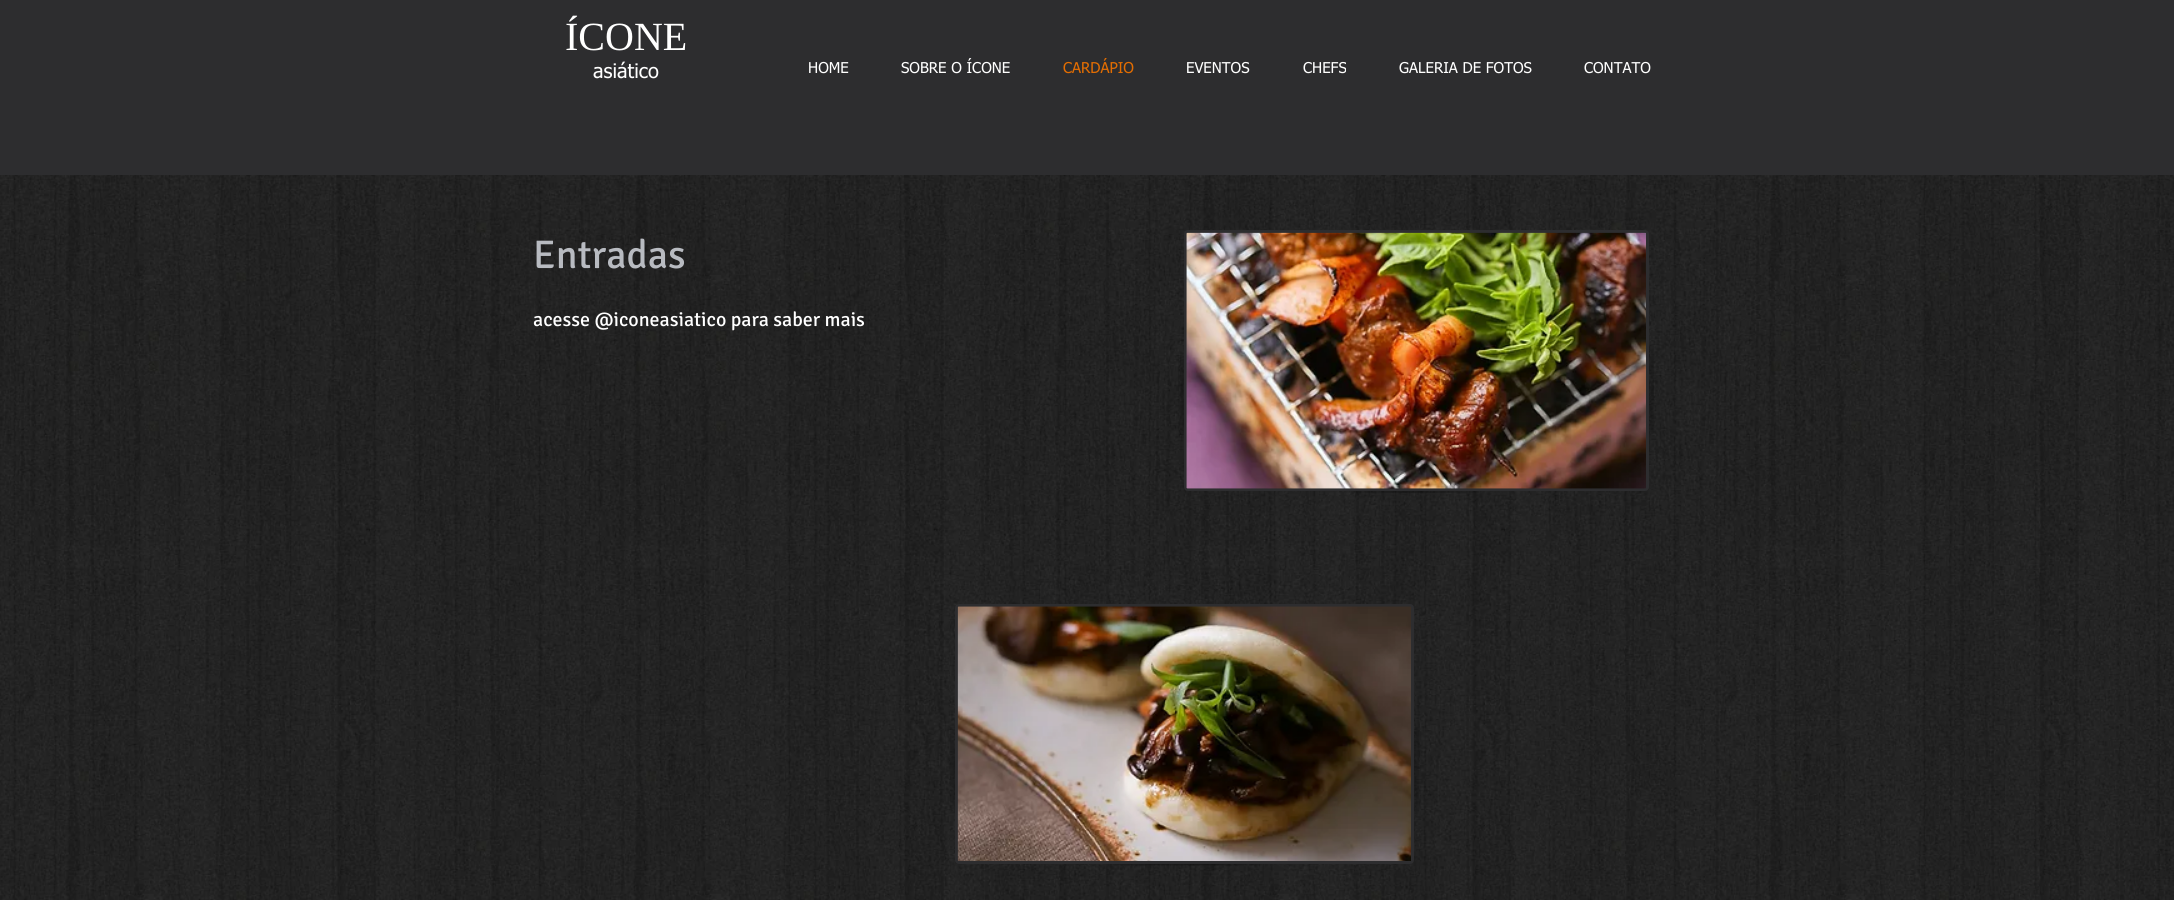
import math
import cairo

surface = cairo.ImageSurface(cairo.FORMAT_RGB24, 2174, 900)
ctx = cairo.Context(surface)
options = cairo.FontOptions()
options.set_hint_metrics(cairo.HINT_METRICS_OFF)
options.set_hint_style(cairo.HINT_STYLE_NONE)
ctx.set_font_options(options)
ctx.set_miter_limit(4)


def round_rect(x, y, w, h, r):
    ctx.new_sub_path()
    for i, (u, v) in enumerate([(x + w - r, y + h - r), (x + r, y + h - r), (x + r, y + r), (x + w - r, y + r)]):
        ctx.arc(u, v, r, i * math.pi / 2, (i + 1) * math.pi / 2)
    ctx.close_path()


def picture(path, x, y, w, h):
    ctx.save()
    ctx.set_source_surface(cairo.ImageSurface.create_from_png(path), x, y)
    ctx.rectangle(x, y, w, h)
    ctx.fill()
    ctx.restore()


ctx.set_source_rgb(1, 1, 1)
ctx.paint()
ctx.set_source_rgb(0.176, 0.176, 0.184)
ctx.rectangle(0, 0, 2174, 175)
ctx.fill()
ctx.select_font_face("Liberation Serif")
ctx.set_font_size(40)
ctx.set_source_rgb(1, 1, 1)
ctx.move_to(565, 50)
ctx.show_text("ÍCONE")
ctx.select_font_face("tahoma")
ctx.set_font_size(20)
ctx.move_to(593, 78)
ctx.show_text("asiático")
ctx.set_font_size(15)
ctx.move_to(808, 73)
ctx.show_text("HOME")
ctx.move_to(901, 73)
ctx.show_text("SOBRE O ÍCONE")
ctx.set_source_rgb(0.89, 0.427, 0.004)
ctx.move_to(1063, 73)
ctx.show_text("CARDÁPIO")
ctx.set_source_rgb(1, 1, 1)
ctx.move_to(1186, 73)
ctx.show_text("EVENTOS")
ctx.move_to(1303, 73)
ctx.show_text("CHEFS")
ctx.move_to(1399, 73)
ctx.show_text("GALERIA DE FOTOS")
ctx.move_to(1584, 73)
ctx.show_text("CONTATO")
picture("img9.png", 0, 175, 2174, 725)
ctx.select_font_face("Signika")
ctx.set_font_size(40)
ctx.set_source_rgb(0.722, 0.733, 0.757)
ctx.move_to(533, 268)
ctx.show_text("Entradas")
picture("img1.png", 1178, 357, 6, 79)
round_rect(1185.5, 231.5, 462, 258, 2.5)
ctx.set_source_rgb(0.176, 0.176, 0.184)
ctx.set_line_width(3)
ctx.stroke()
picture("img2.png", 1186, 232, 460, 257)
picture("img3.png", 1351, 491, 128, 2)
picture("img4.png", 1649, 354, 5, 80)
ctx.set_font_size(20)
ctx.set_source_rgb(1, 1, 1)
ctx.move_to(533, 326)
ctx.show_text("acesse @iconeasiatico para saber mais")
picture("img5.png", 950, 727, 5, 86)
round_rect(956.5, 605.5, 456, 257, 2.5)
ctx.set_source_rgb(0.176, 0.176, 0.184)
ctx.stroke()
picture("img6.png", 957, 606, 454, 255)
picture("img7.png", 1113, 864, 149, 2)
picture("img8.png", 1414, 727, 5, 87)
surface.write_to_png("page.png")
